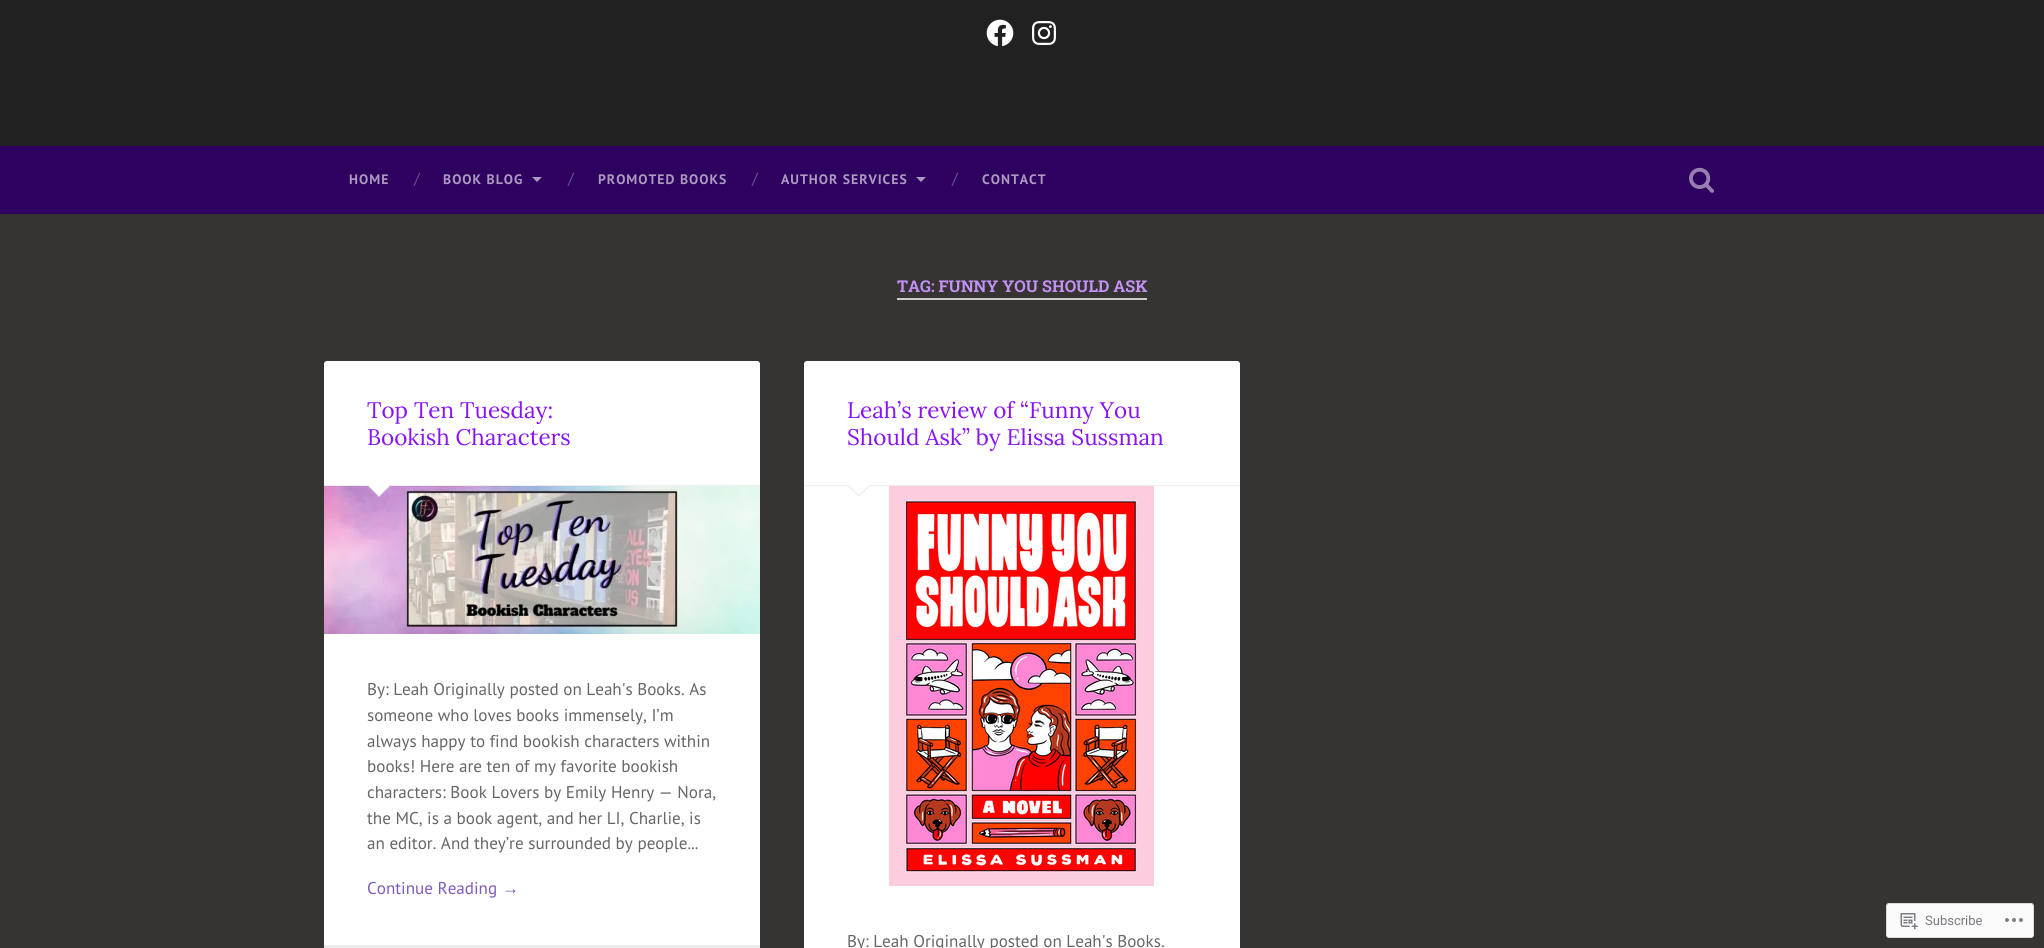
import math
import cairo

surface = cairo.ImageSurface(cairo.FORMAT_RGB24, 2044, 948)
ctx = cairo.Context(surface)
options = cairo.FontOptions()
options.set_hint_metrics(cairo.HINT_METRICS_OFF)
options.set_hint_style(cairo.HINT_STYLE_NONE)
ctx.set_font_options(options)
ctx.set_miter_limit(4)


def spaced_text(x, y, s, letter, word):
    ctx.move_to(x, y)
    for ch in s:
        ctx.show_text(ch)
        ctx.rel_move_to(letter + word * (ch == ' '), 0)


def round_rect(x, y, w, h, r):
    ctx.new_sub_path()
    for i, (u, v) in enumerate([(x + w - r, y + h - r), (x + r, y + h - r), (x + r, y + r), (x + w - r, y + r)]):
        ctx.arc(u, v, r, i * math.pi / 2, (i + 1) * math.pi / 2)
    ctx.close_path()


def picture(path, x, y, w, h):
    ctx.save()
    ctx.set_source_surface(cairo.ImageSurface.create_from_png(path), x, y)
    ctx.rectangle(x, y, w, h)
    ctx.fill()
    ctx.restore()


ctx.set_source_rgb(0.208, 0.204, 0.196)
ctx.paint()
ctx.set_source_rgb(0.129, 0.129, 0.129)
ctx.rectangle(0, 0, 2044, 146)
ctx.fill()
picture("img1.png", 986, 19, 28, 28)
picture("img2.png", 1032, 21, 24, 24)
ctx.set_source_rgb(0.18, 0, 0.376)
ctx.rectangle(0, 146, 2044, 68)
ctx.fill()
ctx.select_font_face("PT Sans", cairo.FONT_SLANT_NORMAL, cairo.FONT_WEIGHT_BOLD)
ctx.set_font_size(13.75)
ctx.set_source_rgb(0.671, 0.6, 0.749)
spaced_text(349, 184, "HOME", 1, 0)
ctx.select_font_face("PT Sans")
ctx.set_font_size(16)
ctx.set_source_rgb(0.427, 0.302, 0.565)
ctx.move_to(414, 184)
ctx.show_text("/")
ctx.select_font_face("PT Sans", cairo.FONT_SLANT_NORMAL, cairo.FONT_WEIGHT_BOLD)
ctx.set_font_size(13.75)
ctx.set_source_rgb(0.671, 0.6, 0.749)
spaced_text(443, 184, "BOOK BLOG", 1, 0)
ctx.new_path()
ctx.move_to(532, 177)
ctx.line_to(542, 177)
ctx.line_to(537, 182)
ctx.close_path()
ctx.fill()
ctx.select_font_face("PT Sans")
ctx.set_font_size(16)
ctx.set_source_rgb(0.427, 0.302, 0.565)
ctx.move_to(568, 184)
ctx.show_text("/")
ctx.select_font_face("PT Sans", cairo.FONT_SLANT_NORMAL, cairo.FONT_WEIGHT_BOLD)
ctx.set_font_size(13.75)
ctx.set_source_rgb(0.671, 0.6, 0.749)
spaced_text(598, 184, "PROMOTED BOOKS", 1, 0)
ctx.select_font_face("PT Sans")
ctx.set_font_size(16)
ctx.set_source_rgb(0.427, 0.302, 0.565)
ctx.move_to(752, 184)
ctx.show_text("/")
ctx.select_font_face("PT Sans", cairo.FONT_SLANT_NORMAL, cairo.FONT_WEIGHT_BOLD)
ctx.set_font_size(13.75)
ctx.set_source_rgb(0.671, 0.6, 0.749)
spaced_text(781, 184, "AUTHOR SERVICES", 1, 0)
ctx.new_path()
ctx.move_to(916, 177)
ctx.line_to(926, 177)
ctx.line_to(921, 182)
ctx.close_path()
ctx.fill()
ctx.select_font_face("PT Sans")
ctx.set_font_size(16)
ctx.set_source_rgb(0.427, 0.302, 0.565)
ctx.move_to(952, 184)
ctx.show_text("/")
ctx.select_font_face("PT Sans", cairo.FONT_SLANT_NORMAL, cairo.FONT_WEIGHT_BOLD)
ctx.set_font_size(13.75)
ctx.set_source_rgb(0.671, 0.6, 0.749)
spaced_text(982, 184, "CONTACT", 1, 0)
picture("img3.png", 1689, 167, 25, 26)
ctx.set_source_rgb(0.8, 0.8, 0.8)
ctx.rectangle(897, 298, 250, 2)
ctx.fill()
ctx.select_font_face("Roboto Slab", cairo.FONT_SLANT_NORMAL, cairo.FONT_WEIGHT_BOLD)
ctx.set_font_size(16.25)
ctx.set_source_rgb(0.769, 0.573, 0.965)
ctx.move_to(897, 292)
ctx.show_text("TAG: FUNNY YOU SHOULD ASK")
ctx.set_source_rgb(1, 1, 1)
round_rect(324, 361, 436, 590, 3)
ctx.fill()
ctx.set_source_rgb(0.933, 0.933, 0.933)
ctx.rectangle(324, 485, 436, 1)
ctx.fill()
ctx.select_font_face("Lora")
ctx.set_font_size(22.5)
ctx.set_source_rgb(0.529, 0.078, 0.98)
ctx.move_to(367, 418)
ctx.show_text("Top Ten Tuesday:")
ctx.move_to(367, 445)
ctx.show_text("Bookish Characters")
picture("img4.png", 324, 486, 436, 148)
ctx.set_source_rgb(0.933, 0.933, 0.933)
ctx.new_path()
ctx.move_to(367, 485)
ctx.line_to(391, 485)
ctx.line_to(379, 497)
ctx.close_path()
ctx.fill()
ctx.set_source_rgb(1, 1, 1)
ctx.new_path()
ctx.move_to(368, 484)
ctx.line_to(390, 484)
ctx.line_to(379, 495)
ctx.close_path()
ctx.fill()
ctx.select_font_face("PT Sans")
ctx.set_font_size(17.1)
ctx.set_source_rgb(0.4, 0.4, 0.4)
ctx.move_to(367, 695)
ctx.show_text("By: Leah Originally posted on Leah's Books. As")
ctx.move_to(367, 721)
ctx.show_text("someone who loves books immensely, I’m")
ctx.move_to(367, 747)
ctx.show_text("always happy to find bookish characters within")
ctx.move_to(367, 772)
ctx.show_text("books! Here are ten of my favorite bookish")
ctx.move_to(367, 798)
ctx.show_text("characters: Book Lovers by Emily Henry — Nora,")
ctx.move_to(367, 824)
ctx.show_text("the MC, is a book agent, and her LI, Charlie, is")
ctx.move_to(367, 849)
ctx.show_text("an editor. And they’re surrounded by people...")
ctx.set_source_rgb(0.498, 0.353, 0.741)
ctx.move_to(367, 894)
ctx.show_text("Continue Reading")
ctx.select_font_face("Liberation Sans")
ctx.move_to(502, 894)
ctx.show_text("→")
ctx.set_source_rgb(0.922, 0.922, 0.922)
ctx.rectangle(324, 945, 436, 3)
ctx.fill()
ctx.set_source_rgb(1, 1, 1)
round_rect(804, 361, 436, 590, 3)
ctx.fill()
ctx.set_source_rgb(0.933, 0.933, 0.933)
ctx.rectangle(804, 485, 436, 1)
ctx.fill()
ctx.select_font_face("Lora")
ctx.set_font_size(22.5)
ctx.set_source_rgb(0.529, 0.078, 0.98)
ctx.move_to(847, 418)
ctx.show_text("Leah’s review of “Funny You")
ctx.move_to(847, 445)
ctx.show_text("Should Ask” by Elissa Sussman")
ctx.set_source_rgb(0.933, 0.933, 0.933)
ctx.new_path()
ctx.move_to(847, 485)
ctx.line_to(871, 485)
ctx.line_to(859, 497)
ctx.close_path()
ctx.fill()
ctx.set_source_rgb(1, 1, 1)
ctx.new_path()
ctx.move_to(848, 484)
ctx.line_to(870, 484)
ctx.line_to(859, 495)
ctx.close_path()
ctx.fill()
picture("img5.png", 889, 486, 265, 400)
ctx.select_font_face("PT Sans")
ctx.set_font_size(17.1)
ctx.set_source_rgb(0.4, 0.4, 0.4)
ctx.move_to(847, 947)
ctx.show_text("By: Leah Originally posted on Leah's Books.")
ctx.set_source_rgb(0.984, 0.984, 0.984)
round_rect(1886.5, 903.5, 147, 34, 2.5)
ctx.fill_preserve()
ctx.set_source_rgb(0.851, 0.851, 0.859)
ctx.set_line_width(1)
ctx.stroke()
picture("img6.png", 1900, 913, 18, 17)
ctx.select_font_face("Roboto")
ctx.set_font_size(13)
ctx.set_source_rgb(0.467, 0.482, 0.502)
ctx.move_to(1925, 925)
ctx.show_text("Subscribe")
picture("img7.png", 2005, 918, 18, 4)
surface.write_to_png("page.png")
